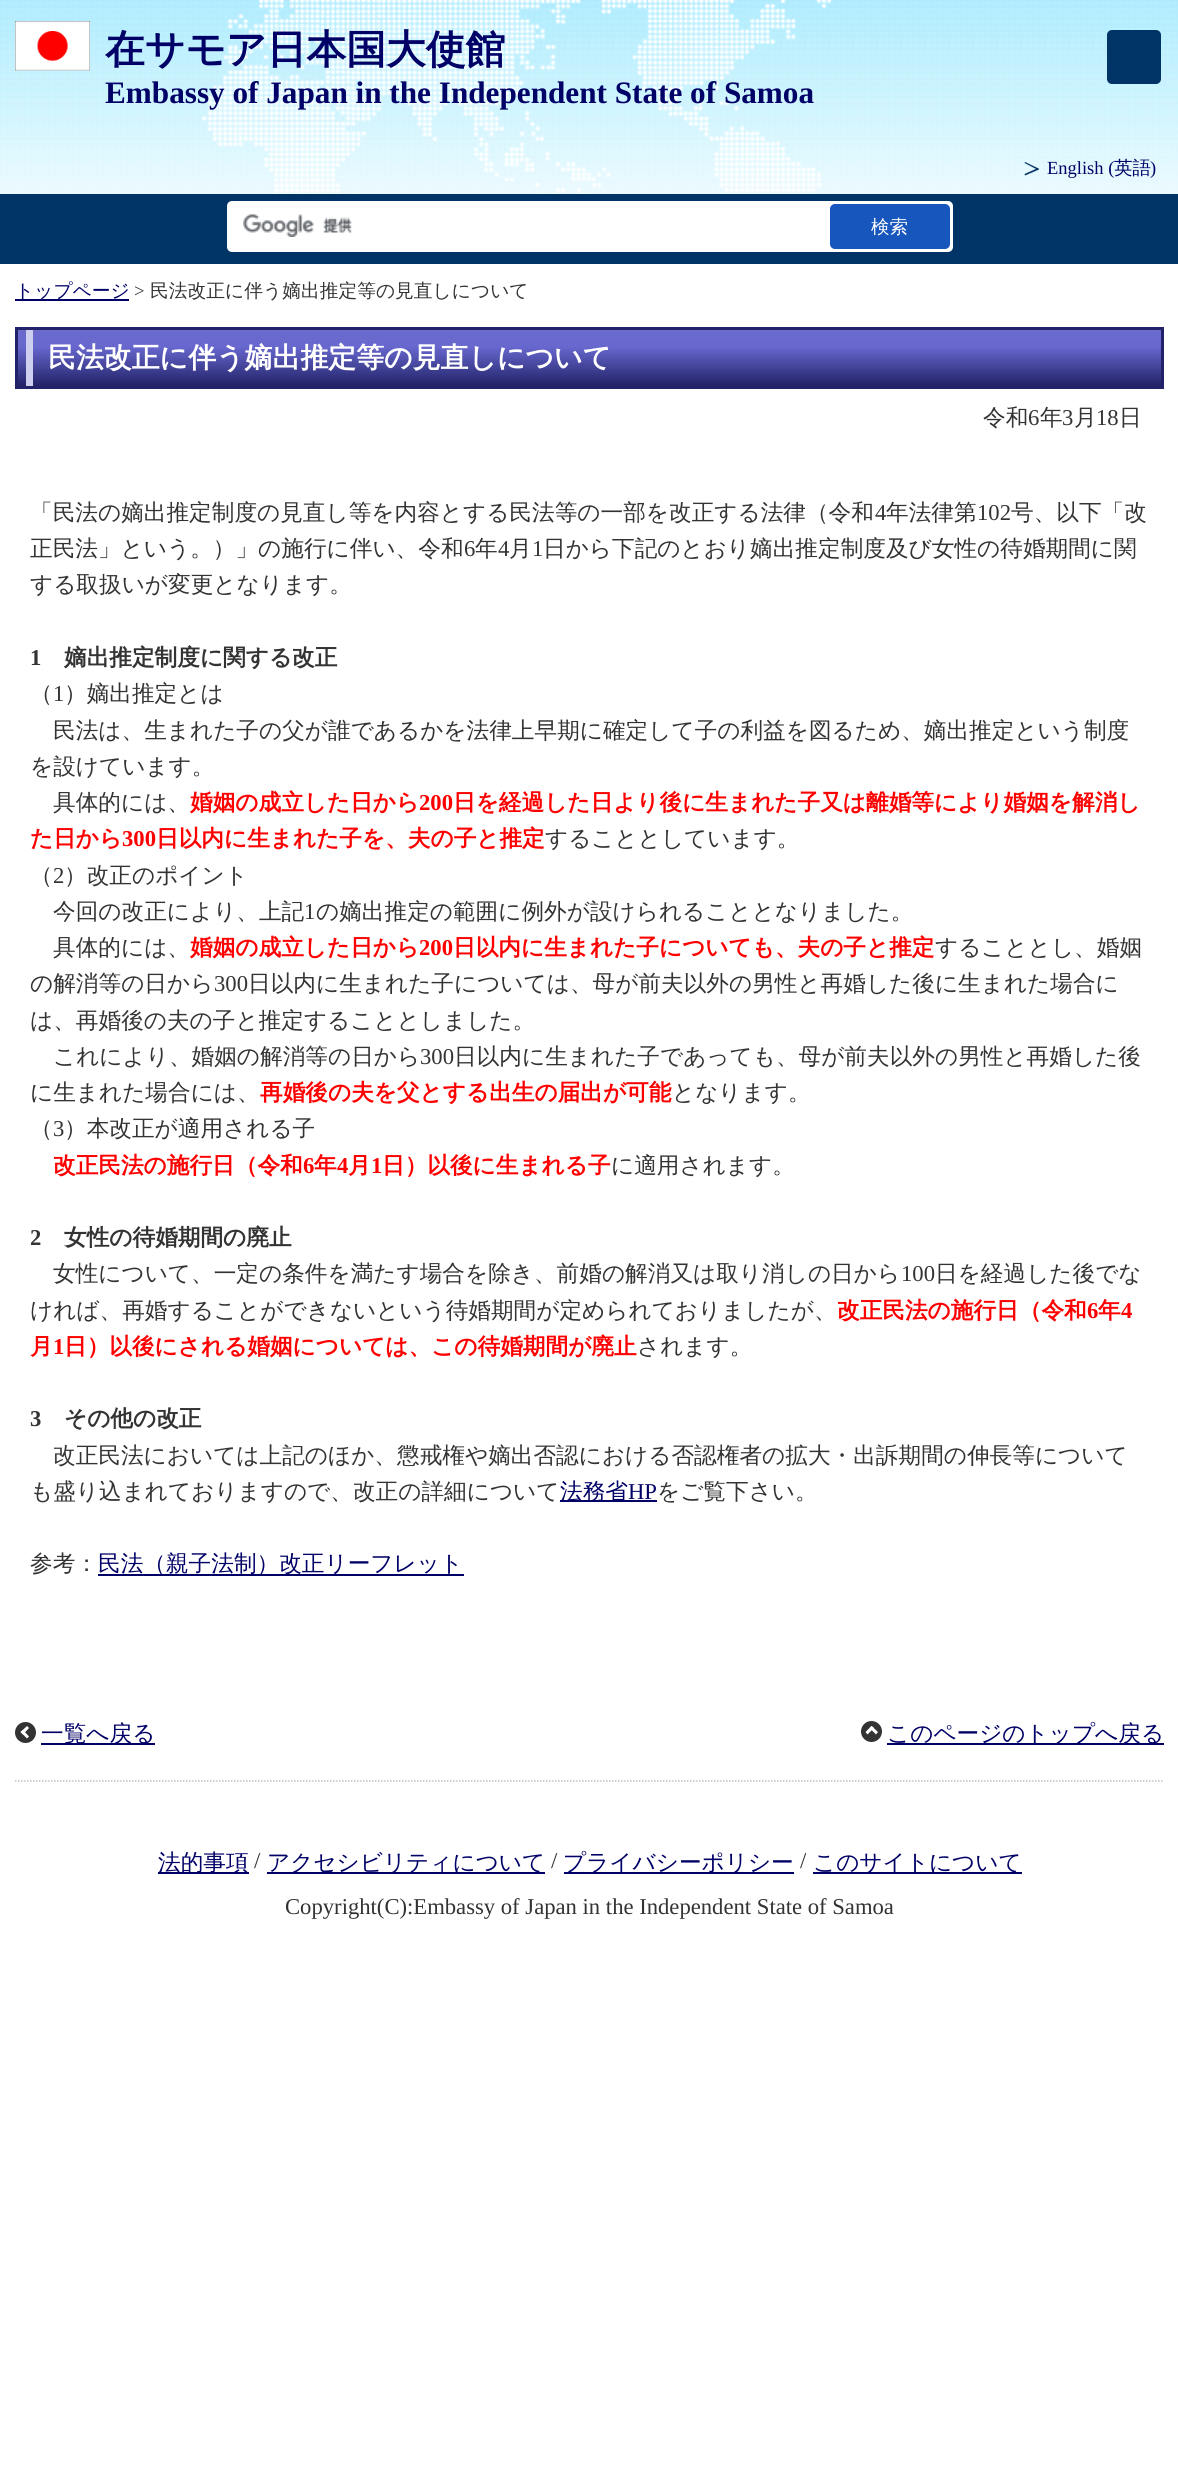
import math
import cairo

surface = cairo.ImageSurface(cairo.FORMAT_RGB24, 1178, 2475)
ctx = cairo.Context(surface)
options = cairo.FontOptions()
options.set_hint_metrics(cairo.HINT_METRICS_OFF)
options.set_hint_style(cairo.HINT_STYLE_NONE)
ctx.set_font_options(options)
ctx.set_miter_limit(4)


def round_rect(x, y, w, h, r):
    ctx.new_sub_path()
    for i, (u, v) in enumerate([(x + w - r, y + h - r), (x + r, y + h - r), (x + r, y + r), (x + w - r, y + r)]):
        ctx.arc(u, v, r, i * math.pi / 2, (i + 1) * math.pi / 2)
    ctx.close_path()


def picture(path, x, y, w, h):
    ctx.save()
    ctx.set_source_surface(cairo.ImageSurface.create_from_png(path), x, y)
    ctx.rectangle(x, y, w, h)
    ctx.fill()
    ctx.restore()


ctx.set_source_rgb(1, 1, 1)
ctx.paint()
picture("img1.png", 0, 0, 1178, 194)
picture("img2.png", 202, 0, 629, 194)
picture("img3.png", 15, 21, 75, 50)
ctx.select_font_face("WenQuanYi Zen Hei", cairo.FONT_SLANT_NORMAL, cairo.FONT_WEIGHT_BOLD)
ctx.set_font_size(39.75)
ctx.set_source_rgb(0, 0, 0.4)
ctx.move_to(105, 63)
ctx.show_text("在サモア日本国大使館")
ctx.select_font_face("Liberation Serif", cairo.FONT_SLANT_NORMAL, cairo.FONT_WEIGHT_BOLD)
ctx.set_font_size(31.2)
ctx.move_to(105, 103)
ctx.show_text("Embassy of Japan in the Independent State of Samoa")
ctx.set_source_rgb(0, 0.2, 0.4)
round_rect(1107, 30, 54, 54, 5)
ctx.fill()
ctx.set_source_rgb(0.016, 0.204, 0.396)
ctx.new_path()
ctx.move_to(1038, 170)
ctx.line_to(1024.5, 163)
ctx.line_to(1025, 162)
ctx.line_to(1038.5, 168.5)
ctx.close_path()
ctx.fill()
ctx.select_font_face("Liberation Serif")
ctx.set_font_size(18.5)
ctx.set_source_rgb(0, 0, 0.4)
ctx.move_to(1047, 174)
ctx.show_text("English (")
ctx.select_font_face("WenQuanYi Zen Hei Medium")
ctx.move_to(1114, 174)
ctx.show_text("英語")
ctx.select_font_face("Liberation Serif")
ctx.move_to(1150, 174)
ctx.show_text(")")
ctx.set_source_rgb(0.016, 0.204, 0.396)
ctx.new_path()
ctx.move_to(1039, 169.5)
ctx.line_to(1025, 175.5)
ctx.line_to(1024.5, 174)
ctx.line_to(1038, 168)
ctx.close_path()
ctx.fill()
ctx.set_source_rgb(0, 0.2, 0.4)
ctx.rectangle(0, 194, 1178, 70)
ctx.fill()
ctx.set_source_rgb(1, 1, 1)
round_rect(227, 201, 726, 51, 5)
ctx.fill()
picture("img4.png", 243, 214, 109, 23)
ctx.set_source_rgb(0.09, 0.337, 0.741)
round_rect(830, 204, 120, 45, 5)
ctx.fill()
ctx.select_font_face("WenQuanYi Zen Hei Medium")
ctx.set_source_rgb(1, 1, 1)
ctx.move_to(871, 233)
ctx.show_text("検索")
ctx.set_source_rgb(0, 0, 0.4)
ctx.rectangle(15, 299, 114, 2)
ctx.fill()
ctx.set_font_size(18.75)
ctx.move_to(15, 297)
ctx.show_text("トップページ")
ctx.select_font_face("Liberation Serif")
ctx.set_source_rgb(0.2, 0.2, 0.2)
ctx.move_to(134, 297)
ctx.show_text(">")
ctx.select_font_face("WenQuanYi Zen Hei Medium")
ctx.move_to(150, 297)
ctx.show_text("民法改正に伴う嫡出推定等の見直しについて")
gradient = cairo.LinearGradient(590, 330, 590, 386)
gradient.add_color_stop_rgba(0, 0.42, 0.42, 0.808, 1)
gradient.add_color_stop_rgba(0.3, 0.404, 0.404, 0.808, 1)
gradient.add_color_stop_rgba(1, 0.133, 0.133, 0.408, 1)
ctx.set_source(gradient)
ctx.rectangle(18, 330, 1143, 56)
ctx.fill()
ctx.rectangle(16.5, 328.5, 1146, 59)
ctx.set_source_rgb(0.133, 0.133, 0.408)
ctx.set_line_width(3)
ctx.stroke()
ctx.set_source_rgb(0.808, 0.808, 0.937)
ctx.rectangle(26, 330, 7, 56)
ctx.fill()
ctx.select_font_face("WenQuanYi Zen Hei", cairo.FONT_SLANT_NORMAL, cairo.FONT_WEIGHT_BOLD)
ctx.set_font_size(27.9)
ctx.set_source_rgb(1, 1, 1)
ctx.move_to(48, 367)
ctx.show_text("民法改正に伴う嫡出推定等の見直しについて")
ctx.select_font_face("WenQuanYi Zen Hei Medium")
ctx.set_font_size(22.65)
ctx.set_source_rgb(0.2, 0.2, 0.2)
ctx.move_to(983, 425)
ctx.show_text("令和")
ctx.select_font_face("Liberation Serif")
ctx.move_to(1028, 425)
ctx.show_text("6")
ctx.select_font_face("WenQuanYi Zen Hei Medium")
ctx.move_to(1040, 425)
ctx.show_text("年")
ctx.select_font_face("Liberation Serif")
ctx.move_to(1062, 425)
ctx.show_text("3")
ctx.select_font_face("WenQuanYi Zen Hei Medium")
ctx.move_to(1074, 425)
ctx.show_text("月")
ctx.select_font_face("Liberation Serif")
ctx.move_to(1096, 425)
ctx.show_text("18")
ctx.select_font_face("WenQuanYi Zen Hei Medium")
ctx.move_to(1119, 425)
ctx.show_text("日")
ctx.move_to(30, 520)
ctx.show_text("「民法の嫡出推定制度の見直し等を内容とする民法等の一部を改正する法律（令和")
ctx.select_font_face("Liberation Serif")
ctx.move_to(875, 520)
ctx.show_text("4")
ctx.select_font_face("WenQuanYi Zen Hei Medium")
ctx.move_to(886, 520)
ctx.show_text("年法律第")
ctx.select_font_face("Liberation Serif")
ctx.move_to(977, 520)
ctx.show_text("102")
ctx.select_font_face("WenQuanYi Zen Hei Medium")
ctx.move_to(1011, 520)
ctx.show_text("号、以下「改")
ctx.move_to(30, 556)
ctx.show_text("正民法」という。）」の施行に伴い、令和")
ctx.select_font_face("Liberation Serif")
ctx.move_to(464, 556)
ctx.show_text("6")
ctx.select_font_face("WenQuanYi Zen Hei Medium")
ctx.move_to(475, 556)
ctx.show_text("年")
ctx.select_font_face("Liberation Serif")
ctx.move_to(498, 556)
ctx.show_text("4")
ctx.select_font_face("WenQuanYi Zen Hei Medium")
ctx.move_to(509, 556)
ctx.show_text("月")
ctx.select_font_face("Liberation Serif")
ctx.move_to(532, 556)
ctx.show_text("1")
ctx.select_font_face("WenQuanYi Zen Hei Medium")
ctx.move_to(543, 556)
ctx.show_text("日から下記のとおり嫡出推定制度及び女性の待婚期間に関")
ctx.move_to(30, 592)
ctx.show_text("する取扱いが変更となります。")
ctx.select_font_face("Liberation Serif", cairo.FONT_SLANT_NORMAL, cairo.FONT_WEIGHT_BOLD)
ctx.move_to(30, 665)
ctx.show_text("1")
ctx.select_font_face("WenQuanYi Zen Hei", cairo.FONT_SLANT_NORMAL, cairo.FONT_WEIGHT_BOLD)
ctx.move_to(64, 665)
ctx.show_text("嫡出推定制度に関する改正")
ctx.select_font_face("WenQuanYi Zen Hei Medium")
ctx.move_to(30, 701)
ctx.show_text("（")
ctx.select_font_face("Liberation Serif")
ctx.move_to(53, 701)
ctx.show_text("1")
ctx.select_font_face("WenQuanYi Zen Hei Medium")
ctx.move_to(64, 701)
ctx.show_text("）嫡出推定とは")
ctx.move_to(53, 738)
ctx.show_text("民法は、生まれた子の父が誰であるかを法律上早期に確定して子の利益を図るため、嫡出推定という制度")
ctx.move_to(30, 774)
ctx.show_text("を設けています。")
ctx.move_to(53, 810)
ctx.show_text("具体的には、")
ctx.select_font_face("WenQuanYi Zen Hei", cairo.FONT_SLANT_NORMAL, cairo.FONT_WEIGHT_BOLD)
ctx.set_source_rgb(1, 0, 0)
ctx.move_to(190, 810)
ctx.show_text("婚姻の成立した日から")
ctx.select_font_face("Liberation Serif", cairo.FONT_SLANT_NORMAL, cairo.FONT_WEIGHT_BOLD)
ctx.move_to(419, 810)
ctx.show_text("200")
ctx.select_font_face("WenQuanYi Zen Hei", cairo.FONT_SLANT_NORMAL, cairo.FONT_WEIGHT_BOLD)
ctx.move_to(453, 810)
ctx.show_text("日を経過した日より後に生まれた子又は離婚等により婚姻を解消し")
ctx.move_to(30, 846)
ctx.show_text("た日から")
ctx.select_font_face("Liberation Serif", cairo.FONT_SLANT_NORMAL, cairo.FONT_WEIGHT_BOLD)
ctx.move_to(122, 846)
ctx.show_text("300")
ctx.select_font_face("WenQuanYi Zen Hei", cairo.FONT_SLANT_NORMAL, cairo.FONT_WEIGHT_BOLD)
ctx.move_to(156, 846)
ctx.show_text("日以内に生まれた子を、夫の子と推定")
ctx.select_font_face("WenQuanYi Zen Hei Medium")
ctx.set_source_rgb(0.2, 0.2, 0.2)
ctx.move_to(545, 846)
ctx.show_text("することとしています。")
ctx.move_to(30, 883)
ctx.show_text("（")
ctx.select_font_face("Liberation Serif")
ctx.move_to(53, 883)
ctx.show_text("2")
ctx.select_font_face("WenQuanYi Zen Hei Medium")
ctx.move_to(64, 883)
ctx.show_text("）改正のポイント")
ctx.move_to(53, 919)
ctx.show_text("今回の改正により、上記")
ctx.select_font_face("Liberation Serif")
ctx.move_to(304, 919)
ctx.show_text("1")
ctx.select_font_face("WenQuanYi Zen Hei Medium")
ctx.move_to(316, 919)
ctx.show_text("の嫡出推定の範囲に例外が設けられることとなりました。")
ctx.move_to(53, 955)
ctx.show_text("具体的には、")
ctx.select_font_face("WenQuanYi Zen Hei", cairo.FONT_SLANT_NORMAL, cairo.FONT_WEIGHT_BOLD)
ctx.set_source_rgb(1, 0, 0)
ctx.move_to(190, 955)
ctx.show_text("婚姻の成立した日から")
ctx.select_font_face("Liberation Serif", cairo.FONT_SLANT_NORMAL, cairo.FONT_WEIGHT_BOLD)
ctx.move_to(419, 955)
ctx.show_text("200")
ctx.select_font_face("WenQuanYi Zen Hei", cairo.FONT_SLANT_NORMAL, cairo.FONT_WEIGHT_BOLD)
ctx.move_to(453, 955)
ctx.show_text("日以内に生まれた子についても、夫の子と推定")
ctx.select_font_face("WenQuanYi Zen Hei Medium")
ctx.set_source_rgb(0.2, 0.2, 0.2)
ctx.move_to(935, 955)
ctx.show_text("することとし、婚姻")
ctx.move_to(30, 991)
ctx.show_text("の解消等の日から")
ctx.select_font_face("Liberation Serif")
ctx.move_to(214, 991)
ctx.show_text("300")
ctx.select_font_face("WenQuanYi Zen Hei Medium")
ctx.move_to(248, 991)
ctx.show_text("日以内に生まれた子については、母が前夫以外の男性と再婚した後に生まれた場合に")
ctx.move_to(30, 1028)
ctx.show_text("は、再婚後の夫の子と推定することとしました。")
ctx.move_to(53, 1064)
ctx.show_text("これにより、婚姻の解消等の日から")
ctx.select_font_face("Liberation Serif")
ctx.move_to(420, 1064)
ctx.show_text("300")
ctx.select_font_face("WenQuanYi Zen Hei Medium")
ctx.move_to(454, 1064)
ctx.show_text("日以内に生まれた子であっても、母が前夫以外の男性と再婚した後")
ctx.move_to(30, 1100)
ctx.show_text("に生まれた場合には、")
ctx.select_font_face("WenQuanYi Zen Hei", cairo.FONT_SLANT_NORMAL, cairo.FONT_WEIGHT_BOLD)
ctx.set_source_rgb(1, 0, 0)
ctx.move_to(260, 1100)
ctx.show_text("再婚後の夫を父とする出生の届出が可能")
ctx.select_font_face("WenQuanYi Zen Hei Medium")
ctx.set_source_rgb(0.2, 0.2, 0.2)
ctx.move_to(672, 1100)
ctx.show_text("となります。")
ctx.move_to(30, 1136)
ctx.show_text("（")
ctx.select_font_face("Liberation Serif")
ctx.move_to(53, 1136)
ctx.show_text("3")
ctx.select_font_face("WenQuanYi Zen Hei Medium")
ctx.move_to(64, 1136)
ctx.show_text("）本改正が適用される子")
ctx.select_font_face("WenQuanYi Zen Hei", cairo.FONT_SLANT_NORMAL, cairo.FONT_WEIGHT_BOLD)
ctx.set_source_rgb(1, 0, 0)
ctx.move_to(53, 1173)
ctx.show_text("改正民法の施行日（令和")
ctx.select_font_face("Liberation Serif", cairo.FONT_SLANT_NORMAL, cairo.FONT_WEIGHT_BOLD)
ctx.move_to(303, 1173)
ctx.show_text("6")
ctx.select_font_face("WenQuanYi Zen Hei", cairo.FONT_SLANT_NORMAL, cairo.FONT_WEIGHT_BOLD)
ctx.move_to(314, 1173)
ctx.show_text("年")
ctx.select_font_face("Liberation Serif", cairo.FONT_SLANT_NORMAL, cairo.FONT_WEIGHT_BOLD)
ctx.move_to(337, 1173)
ctx.show_text("4")
ctx.select_font_face("WenQuanYi Zen Hei", cairo.FONT_SLANT_NORMAL, cairo.FONT_WEIGHT_BOLD)
ctx.move_to(348, 1173)
ctx.show_text("月")
ctx.select_font_face("Liberation Serif", cairo.FONT_SLANT_NORMAL, cairo.FONT_WEIGHT_BOLD)
ctx.move_to(371, 1173)
ctx.show_text("1")
ctx.select_font_face("WenQuanYi Zen Hei", cairo.FONT_SLANT_NORMAL, cairo.FONT_WEIGHT_BOLD)
ctx.move_to(382, 1173)
ctx.show_text("日）以後に生まれる子")
ctx.select_font_face("WenQuanYi Zen Hei Medium")
ctx.set_source_rgb(0.2, 0.2, 0.2)
ctx.move_to(611, 1173)
ctx.show_text("に適用されます。")
ctx.select_font_face("Liberation Serif", cairo.FONT_SLANT_NORMAL, cairo.FONT_WEIGHT_BOLD)
ctx.move_to(30, 1245)
ctx.show_text("2")
ctx.select_font_face("WenQuanYi Zen Hei", cairo.FONT_SLANT_NORMAL, cairo.FONT_WEIGHT_BOLD)
ctx.move_to(64, 1245)
ctx.show_text("女性の待婚期間の廃止")
ctx.select_font_face("WenQuanYi Zen Hei Medium")
ctx.move_to(53, 1281)
ctx.show_text("女性について、一定の条件を満たす場合を除き、前婚の解消又は取り消しの日から")
ctx.select_font_face("Liberation Serif")
ctx.move_to(901, 1281)
ctx.show_text("100")
ctx.select_font_face("WenQuanYi Zen Hei Medium")
ctx.move_to(935, 1281)
ctx.show_text("日を経過した後でな")
ctx.move_to(30, 1318)
ctx.show_text("ければ、再婚することができないという待婚期間が定められておりましたが、")
ctx.select_font_face("WenQuanYi Zen Hei", cairo.FONT_SLANT_NORMAL, cairo.FONT_WEIGHT_BOLD)
ctx.set_source_rgb(1, 0, 0)
ctx.move_to(837, 1318)
ctx.show_text("改正民法の施行日（令和")
ctx.select_font_face("Liberation Serif", cairo.FONT_SLANT_NORMAL, cairo.FONT_WEIGHT_BOLD)
ctx.move_to(1087, 1318)
ctx.show_text("6")
ctx.select_font_face("WenQuanYi Zen Hei", cairo.FONT_SLANT_NORMAL, cairo.FONT_WEIGHT_BOLD)
ctx.move_to(1098, 1318)
ctx.show_text("年")
ctx.select_font_face("Liberation Serif", cairo.FONT_SLANT_NORMAL, cairo.FONT_WEIGHT_BOLD)
ctx.move_to(1121, 1318)
ctx.show_text("4")
ctx.select_font_face("WenQuanYi Zen Hei", cairo.FONT_SLANT_NORMAL, cairo.FONT_WEIGHT_BOLD)
ctx.move_to(30, 1354)
ctx.show_text("月")
ctx.select_font_face("Liberation Serif", cairo.FONT_SLANT_NORMAL, cairo.FONT_WEIGHT_BOLD)
ctx.move_to(53, 1354)
ctx.show_text("1")
ctx.select_font_face("WenQuanYi Zen Hei", cairo.FONT_SLANT_NORMAL, cairo.FONT_WEIGHT_BOLD)
ctx.move_to(64, 1354)
ctx.show_text("日）以後にされる婚姻については、この待婚期間が廃止")
ctx.select_font_face("WenQuanYi Zen Hei Medium")
ctx.set_source_rgb(0.2, 0.2, 0.2)
ctx.move_to(637, 1354)
ctx.show_text("されます。")
ctx.select_font_face("Liberation Serif", cairo.FONT_SLANT_NORMAL, cairo.FONT_WEIGHT_BOLD)
ctx.move_to(30, 1426)
ctx.show_text("3")
ctx.select_font_face("WenQuanYi Zen Hei", cairo.FONT_SLANT_NORMAL, cairo.FONT_WEIGHT_BOLD)
ctx.move_to(64, 1426)
ctx.show_text("その他の改正")
ctx.select_font_face("WenQuanYi Zen Hei Medium")
ctx.move_to(53, 1463)
ctx.show_text("改正民法においては上記のほか、懲戒権や嫡出否認における否認権者の拡大・出訴期間の伸長等について")
ctx.move_to(30, 1499)
ctx.show_text("も盛り込まれておりますので、改正の詳細について")
ctx.set_source_rgb(0, 0, 0.4)
ctx.rectangle(560, 1500, 97, 2)
ctx.fill()
ctx.move_to(560, 1499)
ctx.show_text("法務省")
ctx.select_font_face("Liberation Serif")
ctx.move_to(628, 1499)
ctx.show_text("HP")
ctx.select_font_face("WenQuanYi Zen Hei Medium")
ctx.set_source_rgb(0.2, 0.2, 0.2)
ctx.move_to(657, 1499)
ctx.show_text("をご覧下さい。")
ctx.move_to(30, 1571)
ctx.show_text("参考：")
ctx.set_source_rgb(0, 0, 0.4)
ctx.rectangle(98, 1574, 366, 2)
ctx.fill()
ctx.move_to(98, 1571)
ctx.show_text("民法（親子法制）改正リーフレット")
ctx.set_source_rgb(0.2, 0.2, 0.2)
ctx.new_path()
ctx.arc(25.5, 1732.5, 10.5, 0, 2 * math.pi)
ctx.fill()
ctx.set_source_rgb(0, 0, 0.4)
ctx.rectangle(41, 1743, 114, 2)
ctx.fill()
ctx.move_to(41, 1741)
ctx.show_text("一覧へ戻る")
ctx.set_source_rgb(1, 1, 1)
ctx.new_path()
ctx.move_to(29, 1736.5)
ctx.line_to(27, 1738.5)
ctx.line_to(20.5, 1732)
ctx.line_to(23, 1730)
ctx.close_path()
ctx.fill()
ctx.new_path()
ctx.move_to(29, 1728)
ctx.line_to(23, 1734.5)
ctx.line_to(20.5, 1732)
ctx.line_to(27, 1726)
ctx.close_path()
ctx.fill()
ctx.set_source_rgb(0.2, 0.2, 0.2)
ctx.arc(871.5, 1731.5, 10.5, 0, 2 * math.pi)
ctx.fill()
ctx.set_source_rgb(0, 0, 0.4)
ctx.rectangle(887, 1743, 277, 2)
ctx.fill()
ctx.move_to(887, 1741)
ctx.show_text("このページのトップへ戻る")
ctx.set_source_rgb(1, 1, 1)
ctx.new_path()
ctx.move_to(867.5, 1734.5)
ctx.line_to(865.5, 1732)
ctx.line_to(871.5, 1726)
ctx.line_to(874, 1728)
ctx.close_path()
ctx.fill()
ctx.new_path()
ctx.move_to(876, 1734.5)
ctx.line_to(869.5, 1728)
ctx.line_to(871.5, 1726)
ctx.line_to(878, 1732)
ctx.close_path()
ctx.fill()
ctx.new_path()
ctx.move_to(15, 1781)
ctx.line_to(1164, 1781)
ctx.set_source_rgb(0.749, 0.749, 0.749)
ctx.set_line_width(1.5)
ctx.set_dash([1.5, 1.5])
ctx.stroke()
ctx.set_source_rgb(0, 0, 0.4)
ctx.rectangle(158, 1872, 91, 2)
ctx.fill()
ctx.move_to(158, 1870)
ctx.show_text("法的事項")
ctx.select_font_face("Liberation Serif")
ctx.set_source_rgb(0.2, 0.2, 0.2)
ctx.move_to(254, 1868)
ctx.show_text("/")
ctx.set_source_rgb(0, 0, 0.4)
ctx.rectangle(267, 1872, 278, 2)
ctx.fill()
ctx.select_font_face("WenQuanYi Zen Hei Medium")
ctx.move_to(267, 1870)
ctx.show_text("アクセシビリティについて")
ctx.select_font_face("Liberation Serif")
ctx.set_source_rgb(0.2, 0.2, 0.2)
ctx.move_to(551, 1868)
ctx.show_text("/")
ctx.set_source_rgb(0, 0, 0.4)
ctx.rectangle(564, 1872, 230, 2)
ctx.fill()
ctx.select_font_face("WenQuanYi Zen Hei Medium")
ctx.move_to(563, 1870)
ctx.show_text("プライバシーポリシー")
ctx.select_font_face("Liberation Serif")
ctx.set_source_rgb(0.2, 0.2, 0.2)
ctx.move_to(800, 1868)
ctx.show_text("/")
ctx.set_source_rgb(0, 0, 0.4)
ctx.rectangle(813, 1872, 209, 2)
ctx.fill()
ctx.select_font_face("WenQuanYi Zen Hei Medium")
ctx.move_to(813, 1870)
ctx.show_text("このサイトについて")
ctx.select_font_face("Liberation Serif")
ctx.set_source_rgb(0.2, 0.2, 0.2)
ctx.move_to(285, 1914)
ctx.show_text("Copyright(C):Embassy of Japan in the Independent State of Samoa")
surface.write_to_png("page.png")
